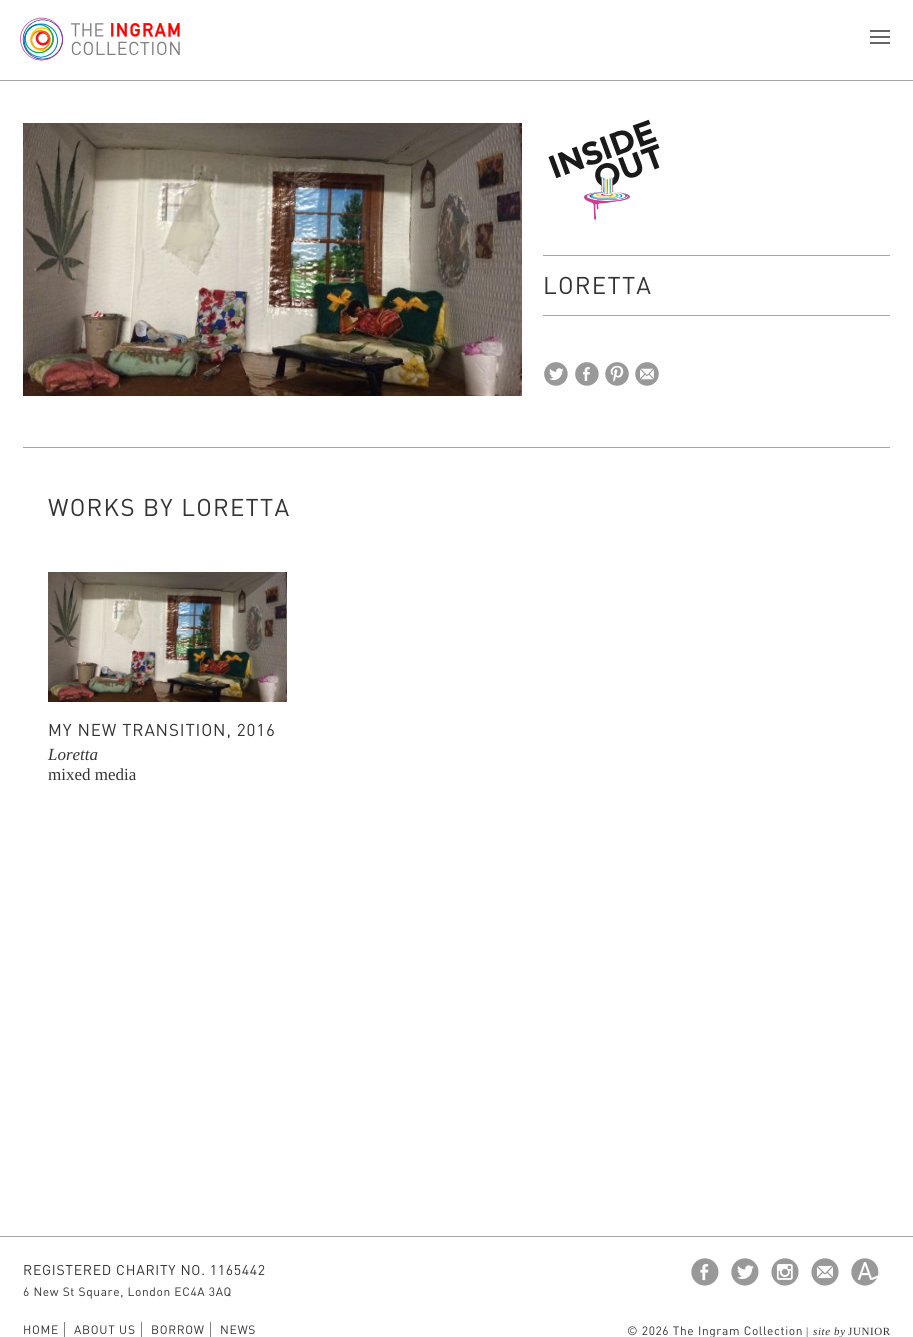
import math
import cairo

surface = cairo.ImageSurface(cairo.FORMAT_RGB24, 913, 1337)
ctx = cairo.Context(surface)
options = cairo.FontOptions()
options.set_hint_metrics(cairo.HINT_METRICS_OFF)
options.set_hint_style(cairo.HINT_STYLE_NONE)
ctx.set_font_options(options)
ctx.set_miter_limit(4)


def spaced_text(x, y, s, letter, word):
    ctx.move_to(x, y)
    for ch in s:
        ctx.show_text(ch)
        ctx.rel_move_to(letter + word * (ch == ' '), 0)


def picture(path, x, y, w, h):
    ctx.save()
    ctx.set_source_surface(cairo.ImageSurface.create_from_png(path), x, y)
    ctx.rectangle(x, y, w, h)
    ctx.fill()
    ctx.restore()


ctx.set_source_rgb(1, 1, 1)
ctx.paint()
ctx.set_source_rgb(0.651, 0.651, 0.651)
ctx.rectangle(0, 80, 913, 1)
ctx.fill()
picture("img1.png", 20, 17, 160, 44)
ctx.set_source_rgb(0.4, 0.4, 0.4)
ctx.rectangle(870, 30, 20, 2)
ctx.fill()
ctx.rectangle(870, 36, 20, 2)
ctx.fill()
ctx.rectangle(870, 42, 20, 2)
ctx.fill()
picture("img2.png", 23, 123, 499, 273)
ctx.set_source_rgb(0.651, 0.651, 0.651)
ctx.rectangle(543, 255, 347, 1)
ctx.fill()
picture("img3.png", 548, 119, 112, 101)
ctx.rectangle(543, 315, 347, 1)
ctx.fill()
ctx.select_font_face("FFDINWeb")
ctx.set_font_size(24)
ctx.set_source_rgb(0.2, 0.2, 0.2)
spaced_text(543, 294, "LORETTA", 1.25, 0)
picture("img4.png", 544, 362, 24, 24)
picture("img5.png", 575, 362, 24, 24)
picture("img6.png", 605, 362, 24, 24)
picture("img7.png", 635, 362, 24, 24)
ctx.set_source_rgb(0.651, 0.651, 0.651)
ctx.rectangle(23, 447, 867, 1)
ctx.fill()
ctx.set_source_rgb(0.2, 0.2, 0.2)
spaced_text(48, 516, "WORKS BY LORETTA", 1.25, 0)
picture("img8.png", 48, 572, 239, 130)
ctx.set_font_size(17)
spaced_text(48, 736, "MY NEW TRANSITION, 2016", 0.85, 0)
ctx.select_font_face("Liberation Serif", cairo.FONT_SLANT_ITALIC)
ctx.move_to(48, 760)
ctx.show_text("Loretta")
ctx.select_font_face("Liberation Serif")
ctx.move_to(48, 780)
ctx.show_text("mixed media")
ctx.set_source_rgb(0.651, 0.651, 0.651)
ctx.rectangle(0, 1236, 913, 1)
ctx.fill()
ctx.select_font_face("FFDINWeb")
ctx.set_font_size(14)
ctx.set_source_rgb(0.2, 0.2, 0.2)
spaced_text(23, 1275, "REGISTERED CHARITY NO. 1165442", 0.7, 0)
ctx.set_font_size(12)
spaced_text(23, 1296, "6 New St Square, London EC4A 3AQ", 0.6, 0)
ctx.set_source_rgb(0.502, 0.502, 0.502)
ctx.rectangle(64, 1322, 1, 15)
ctx.fill()
ctx.set_source_rgb(0.2, 0.2, 0.2)
spaced_text(23, 1334, "HOME", 0.7, 0)
ctx.set_source_rgb(0.502, 0.502, 0.502)
ctx.rectangle(141, 1322, 1, 15)
ctx.fill()
ctx.set_source_rgb(0.2, 0.2, 0.2)
spaced_text(74, 1334, "ABOUT US", 0.7, 0)
ctx.set_source_rgb(0.502, 0.502, 0.502)
ctx.rectangle(210, 1322, 1, 15)
ctx.fill()
ctx.set_source_rgb(0.2, 0.2, 0.2)
spaced_text(151, 1334, "BORROW", 0.7, 0)
spaced_text(220, 1334, "NEWS", 0.7, 0)
picture("img9.png", 691, 1258, 28, 28)
picture("img10.png", 731, 1258, 28, 28)
picture("img11.png", 771, 1258, 28, 28)
picture("img12.png", 811, 1258, 28, 28)
picture("img13.png", 851, 1258, 28, 28)
spaced_text(627, 1335, "© 2026 The Ingram Collection", 0.6, 0)
ctx.select_font_face("Liberation Serif")
ctx.set_font_size(11)
spaced_text(806, 1335, "|", 0.6, 0)
ctx.select_font_face("Liberation Serif", cairo.FONT_SLANT_ITALIC)
spaced_text(813, 1335, "site by", 0.6, 0)
ctx.select_font_face("Liberation Serif")
spaced_text(848, 1335, "JUNIOR", 0.6, 0)
surface.write_to_png("page.png")
